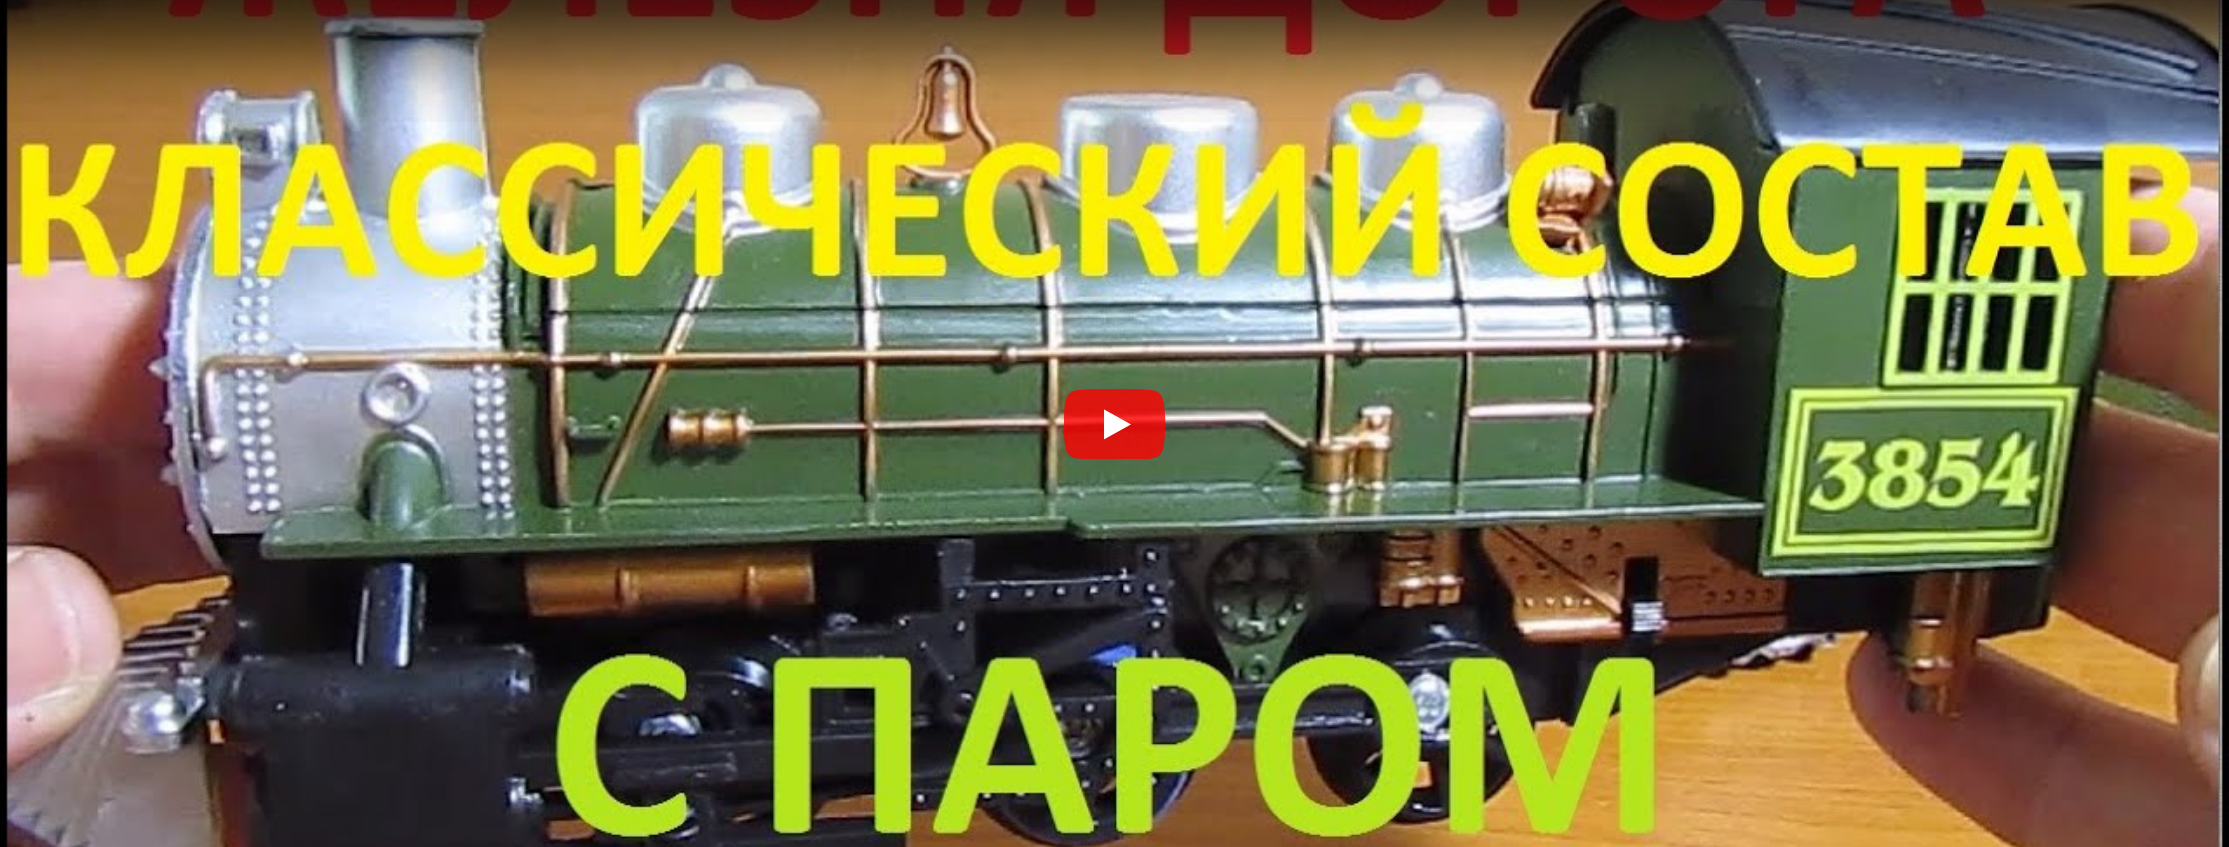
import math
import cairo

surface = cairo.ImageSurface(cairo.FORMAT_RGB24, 2229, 847)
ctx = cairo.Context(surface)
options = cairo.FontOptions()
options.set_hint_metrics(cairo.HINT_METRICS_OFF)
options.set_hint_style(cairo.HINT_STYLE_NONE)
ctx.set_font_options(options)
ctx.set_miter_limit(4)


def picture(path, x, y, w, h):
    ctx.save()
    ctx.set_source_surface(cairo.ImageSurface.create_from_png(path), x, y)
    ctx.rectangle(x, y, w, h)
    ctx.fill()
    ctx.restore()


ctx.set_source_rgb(1, 1, 1)
ctx.paint()
picture("img1.png", 0, 0, 2229, 847)
picture("img2.png", 0, 0, 2223, 122)
picture("img3.png", 1064, 389, 102, 70)
surface.write_to_png("page.png")
